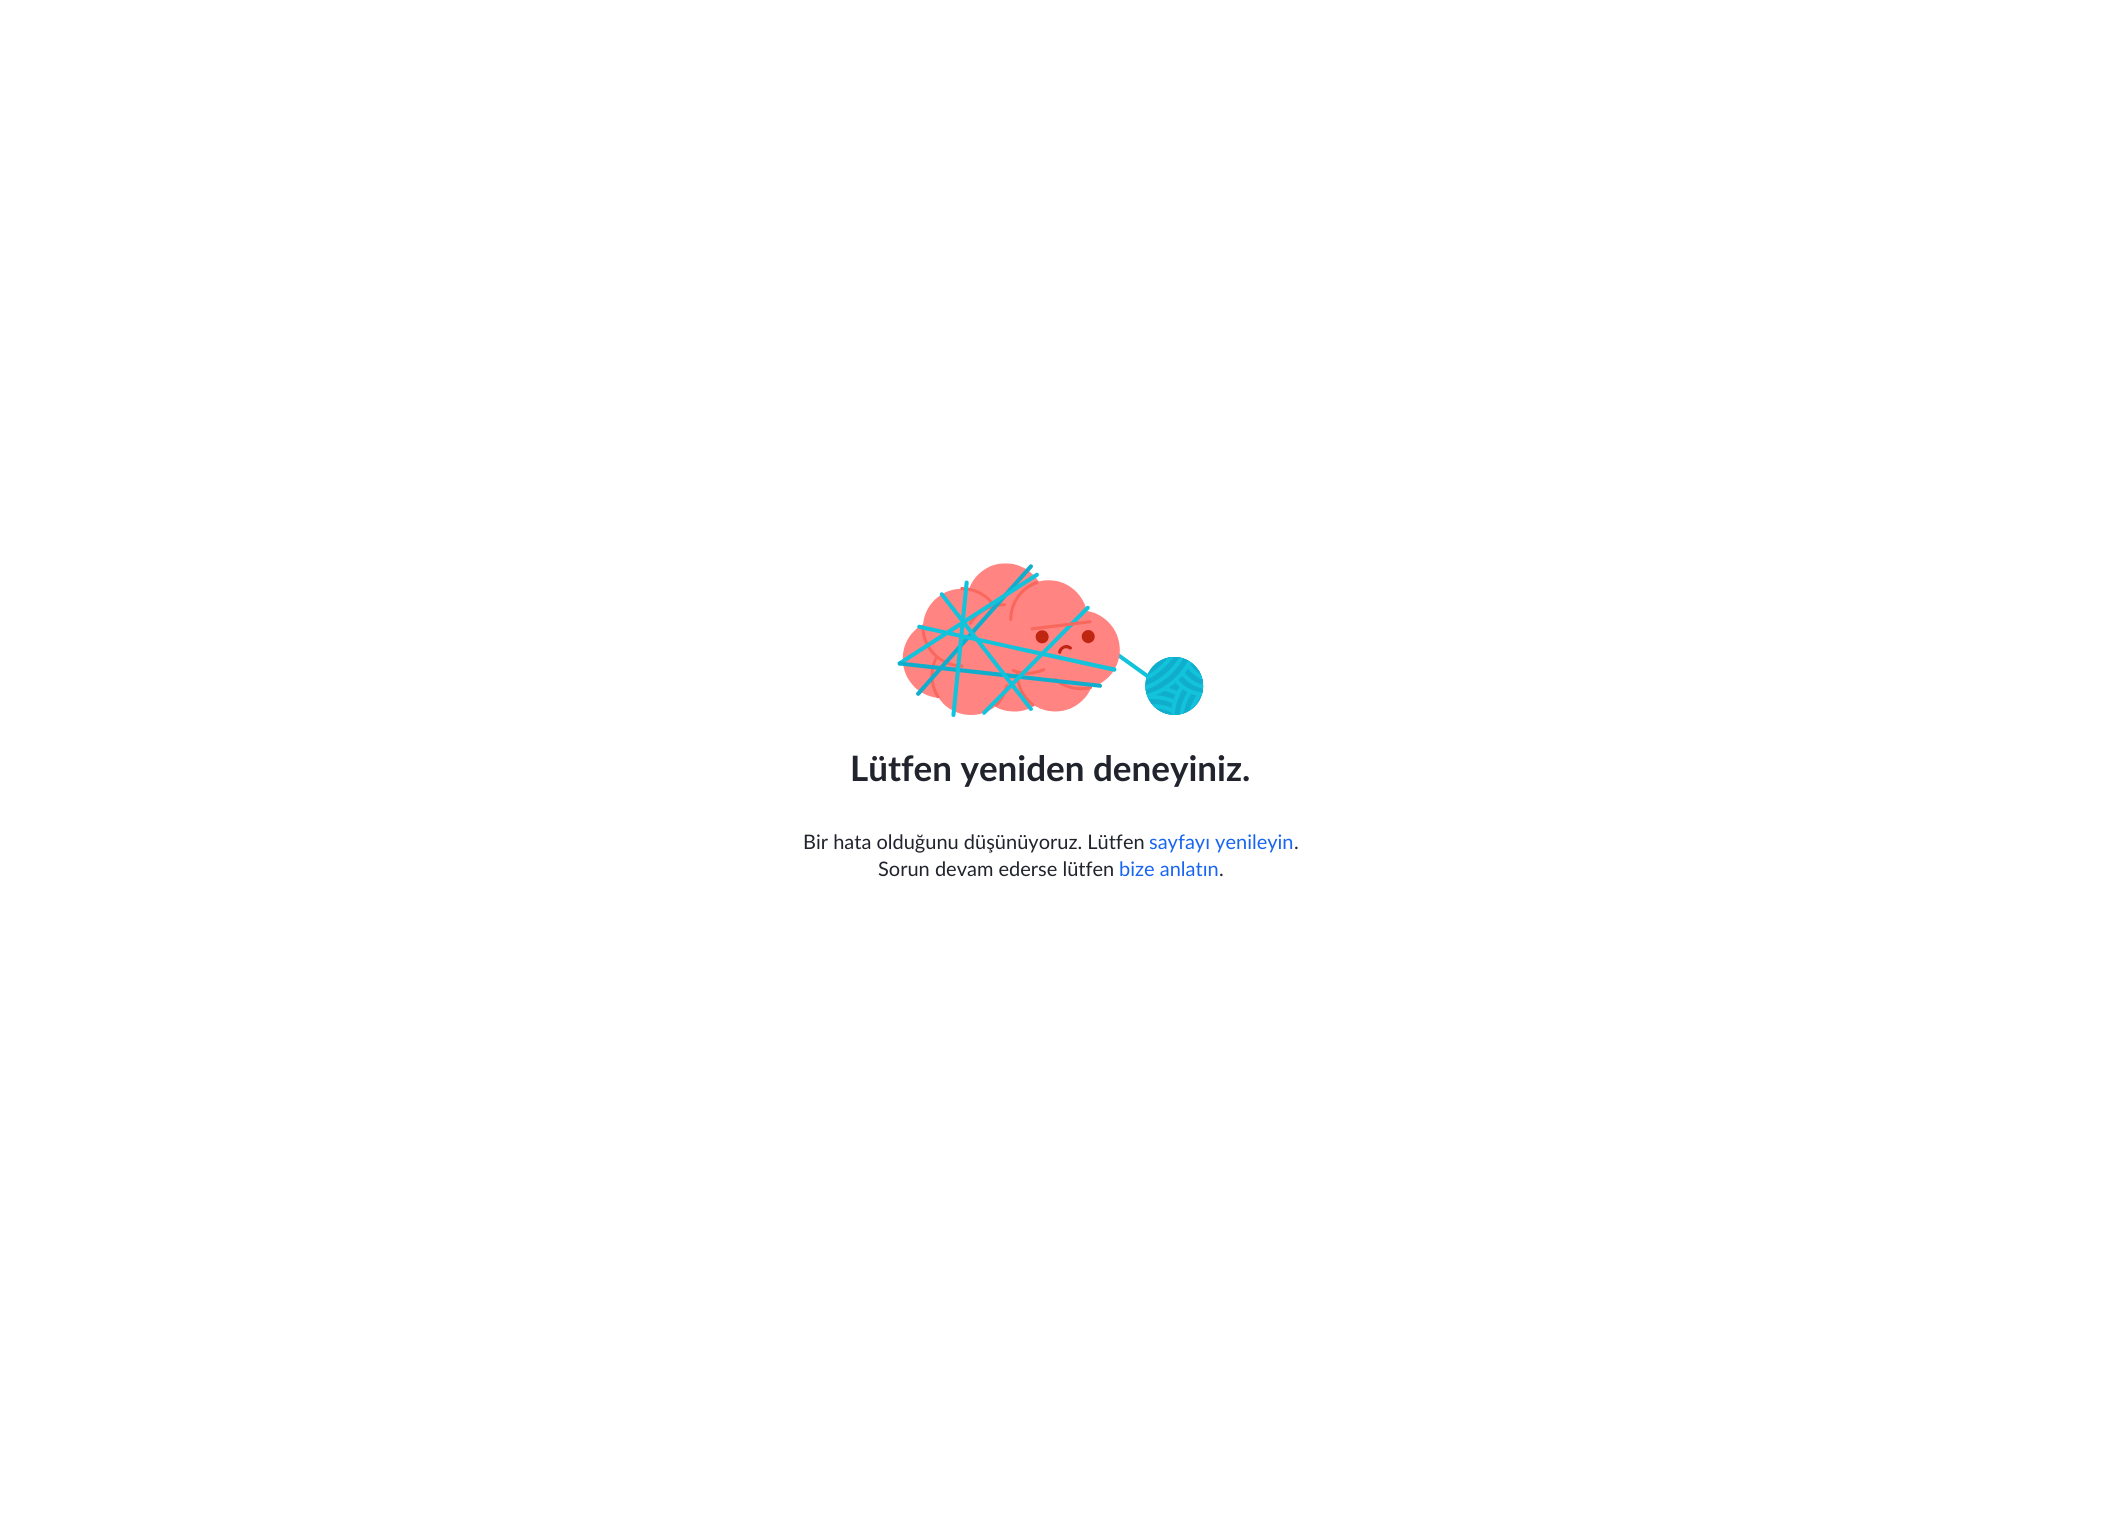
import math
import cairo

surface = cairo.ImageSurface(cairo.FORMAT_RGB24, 2101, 1519)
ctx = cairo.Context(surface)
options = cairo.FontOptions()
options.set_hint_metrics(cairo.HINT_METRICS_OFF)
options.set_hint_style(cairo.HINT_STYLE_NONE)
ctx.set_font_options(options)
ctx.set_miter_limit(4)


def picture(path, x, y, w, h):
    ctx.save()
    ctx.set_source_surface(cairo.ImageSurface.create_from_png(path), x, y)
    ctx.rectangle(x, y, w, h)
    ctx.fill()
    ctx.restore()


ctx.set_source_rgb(1, 1, 1)
ctx.paint()
picture("img1.png", 897, 563, 307, 154)
ctx.select_font_face("Lato", cairo.FONT_SLANT_NORMAL, cairo.FONT_WEIGHT_BOLD)
ctx.set_font_size(35)
ctx.set_source_rgb(0.129, 0.141, 0.173)
ctx.move_to(850, 781)
ctx.show_text("Lütfen yeniden deneyiniz.")
ctx.select_font_face("Lato")
ctx.set_font_size(20)
ctx.move_to(803, 849)
ctx.show_text("Bir hata olduğunu düşünüyoruz. Lütfen")
ctx.set_source_rgb(0.094, 0.396, 0.949)
ctx.move_to(1149, 849)
ctx.show_text("sayfayı yenileyin")
ctx.set_source_rgb(0.129, 0.141, 0.173)
ctx.move_to(1294, 849)
ctx.show_text(".")
ctx.move_to(878, 876)
ctx.show_text("Sorun devam ederse lütfen")
ctx.set_source_rgb(0.094, 0.396, 0.949)
ctx.move_to(1119, 876)
ctx.show_text("bize anlatın")
ctx.set_source_rgb(0.129, 0.141, 0.173)
ctx.move_to(1219, 876)
ctx.show_text(".")
surface.write_to_png("page.png")
